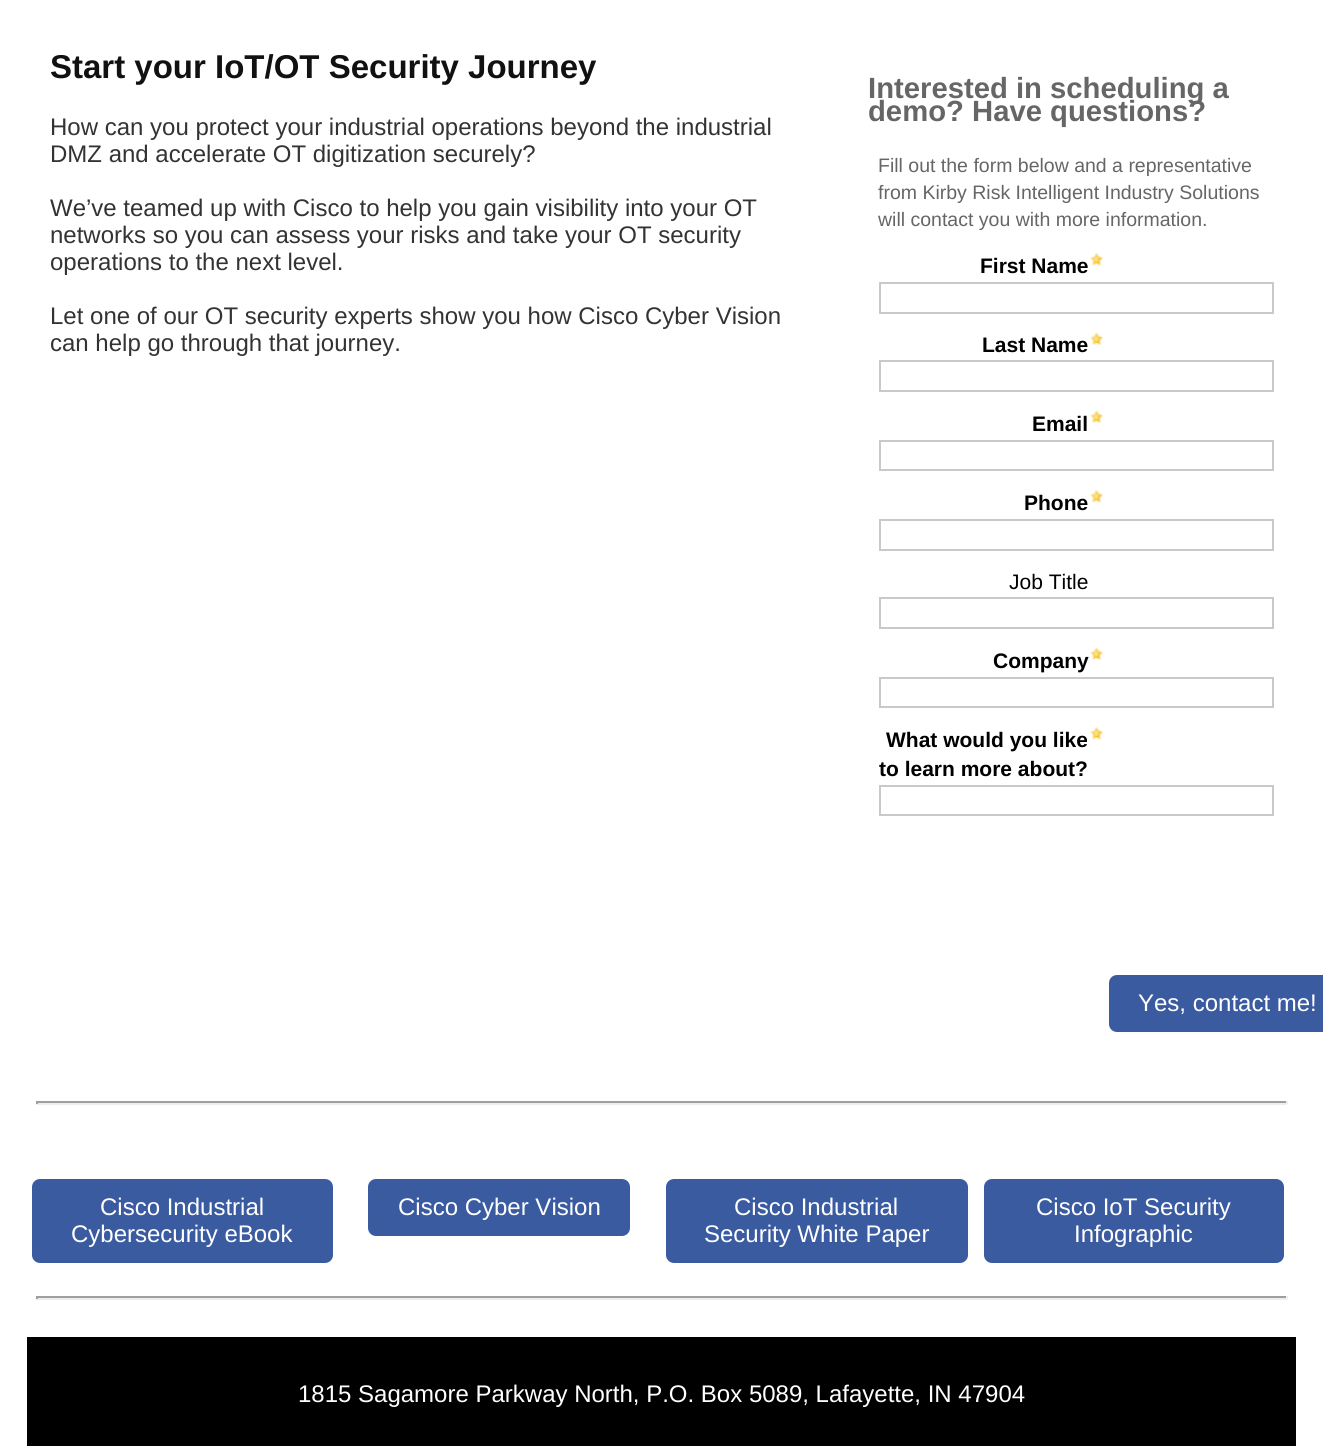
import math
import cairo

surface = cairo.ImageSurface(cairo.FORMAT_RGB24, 1323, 1446)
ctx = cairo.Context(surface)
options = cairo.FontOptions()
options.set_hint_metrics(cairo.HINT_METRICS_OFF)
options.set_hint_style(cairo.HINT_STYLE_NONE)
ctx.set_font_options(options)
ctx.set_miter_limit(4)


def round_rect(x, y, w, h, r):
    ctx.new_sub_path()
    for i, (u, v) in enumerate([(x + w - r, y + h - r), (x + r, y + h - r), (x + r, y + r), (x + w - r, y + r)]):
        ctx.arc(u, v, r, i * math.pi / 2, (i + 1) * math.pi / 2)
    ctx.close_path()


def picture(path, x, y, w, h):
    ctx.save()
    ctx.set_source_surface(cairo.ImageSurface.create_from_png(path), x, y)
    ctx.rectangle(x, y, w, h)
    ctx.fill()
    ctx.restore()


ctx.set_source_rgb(1, 1, 1)
ctx.paint()
ctx.select_font_face("Liberation Sans", cairo.FONT_SLANT_NORMAL, cairo.FONT_WEIGHT_BOLD)
ctx.set_font_size(33)
ctx.set_source_rgb(0.067, 0.067, 0.067)
ctx.move_to(50, 78)
ctx.show_text("Start your IoT/OT Security Journey")
ctx.select_font_face("Liberation Sans")
ctx.set_font_size(24)
ctx.set_source_rgb(0.2, 0.2, 0.2)
ctx.move_to(50, 135)
ctx.show_text("How can you protect your industrial operations beyond the industrial")
ctx.move_to(50, 162)
ctx.show_text("DMZ and accelerate OT digitization securely?")
ctx.move_to(50, 216)
ctx.show_text("We’ve teamed up with Cisco to help you gain visibility into your OT")
ctx.move_to(50, 243)
ctx.show_text("networks so you can assess your risks and take your OT security")
ctx.move_to(50, 270)
ctx.show_text("operations to the next level.")
ctx.move_to(50, 324)
ctx.show_text("Let one of our OT security experts show you how Cisco Cyber Vision")
ctx.move_to(50, 351)
ctx.show_text("can help go through that journey.")
ctx.select_font_face("Liberation Sans", cairo.FONT_SLANT_NORMAL, cairo.FONT_WEIGHT_BOLD)
ctx.set_font_size(29.25)
ctx.set_source_rgb(0.4, 0.4, 0.4)
ctx.move_to(868, 98)
ctx.show_text("Interested in scheduling a")
ctx.move_to(868, 121)
ctx.show_text("demo? Have questions?")
ctx.select_font_face("Liberation Sans")
ctx.set_font_size(19.5)
ctx.move_to(878, 172)
ctx.show_text("Fill out the form below and a representative")
ctx.move_to(878, 199)
ctx.show_text("from Kirby Risk Intelligent Industry Solutions")
ctx.move_to(878, 226)
ctx.show_text("will contact you with more information.")
picture("img1.png", 1090, 252, 13, 14)
ctx.select_font_face("Liberation Sans", cairo.FONT_SLANT_NORMAL, cairo.FONT_WEIGHT_BOLD)
ctx.set_font_size(21)
ctx.set_source_rgb(0, 0, 0)
ctx.move_to(980, 273)
ctx.show_text("First Name")
ctx.rectangle(880, 283, 393, 30)
ctx.set_source_rgb(0.788, 0.788, 0.788)
ctx.stroke()
picture("img2.png", 1090, 332, 13, 13)
ctx.set_source_rgb(0, 0, 0)
ctx.move_to(982, 352)
ctx.show_text("Last Name")
ctx.rectangle(880, 361, 393, 30)
ctx.set_source_rgb(0.788, 0.788, 0.788)
ctx.stroke()
picture("img2.png", 1090, 410, 13, 13)
ctx.set_source_rgb(0, 0, 0)
ctx.move_to(1032, 431)
ctx.show_text("Email")
ctx.rectangle(880, 441, 393, 29)
ctx.set_source_rgb(0.788, 0.788, 0.788)
ctx.stroke()
picture("img1.png", 1090, 489, 13, 14)
ctx.set_source_rgb(0, 0, 0)
ctx.move_to(1024, 510)
ctx.show_text("Phone")
ctx.rectangle(880, 520, 393, 30)
ctx.set_source_rgb(0.788, 0.788, 0.788)
ctx.stroke()
ctx.select_font_face("Liberation Sans")
ctx.set_source_rgb(0, 0, 0)
ctx.move_to(1009, 589)
ctx.show_text("Job Title")
ctx.rectangle(880, 598, 393, 30)
ctx.set_source_rgb(0.788, 0.788, 0.788)
ctx.stroke()
picture("img2.png", 1090, 647, 13, 13)
ctx.select_font_face("Liberation Sans", cairo.FONT_SLANT_NORMAL, cairo.FONT_WEIGHT_BOLD)
ctx.set_source_rgb(0, 0, 0)
ctx.move_to(993, 668)
ctx.show_text("Company")
ctx.rectangle(880, 678, 393, 29)
ctx.set_source_rgb(0.788, 0.788, 0.788)
ctx.stroke()
picture("img1.png", 1090, 726, 13, 14)
ctx.set_source_rgb(0, 0, 0)
ctx.move_to(886, 747)
ctx.show_text("What would you like")
ctx.move_to(879, 776)
ctx.show_text("to learn more about?")
ctx.rectangle(880, 786, 393, 29)
ctx.set_source_rgb(0.788, 0.788, 0.788)
ctx.stroke()
ctx.set_source_rgb(0.231, 0.357, 0.631)
round_rect(1109, 975, 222, 57, 8)
ctx.fill()
ctx.select_font_face("Liberation Sans")
ctx.set_font_size(24)
ctx.set_source_rgb(1, 1, 1)
ctx.move_to(1138, 1011)
ctx.show_text("Yes, contact me!")
ctx.set_source_rgb(0.624, 0.624, 0.624)
ctx.rectangle(36, 1101, 1251, 2)
ctx.fill()
ctx.set_source_rgb(0.933, 0.933, 0.933)
ctx.rectangle(1286, 1101, 2, 3)
ctx.fill()
ctx.rectangle(36, 1103, 1251, 2)
ctx.fill()
ctx.set_source_rgb(0.624, 0.624, 0.624)
ctx.rectangle(36, 1101, 2, 3)
ctx.fill()
ctx.set_source_rgb(0.231, 0.357, 0.631)
round_rect(32, 1179, 301, 84, 8)
ctx.fill()
ctx.set_source_rgb(1, 1, 1)
ctx.move_to(100, 1215)
ctx.show_text("Cisco Industrial")
ctx.move_to(71, 1242)
ctx.show_text("Cybersecurity eBook")
ctx.set_source_rgb(0.231, 0.357, 0.631)
round_rect(368, 1179, 262, 57, 8)
ctx.fill()
ctx.set_source_rgb(1, 1, 1)
ctx.move_to(398, 1215)
ctx.show_text("Cisco Cyber Vision")
ctx.set_source_rgb(0.231, 0.357, 0.631)
round_rect(666, 1179, 302, 84, 8)
ctx.fill()
ctx.set_source_rgb(1, 1, 1)
ctx.move_to(734, 1215)
ctx.show_text("Cisco Industrial")
ctx.move_to(704, 1242)
ctx.show_text("Security White Paper")
ctx.set_source_rgb(0.231, 0.357, 0.631)
round_rect(984, 1179, 300, 84, 8)
ctx.fill()
ctx.set_source_rgb(1, 1, 1)
ctx.move_to(1036, 1215)
ctx.show_text("Cisco IoT Security")
ctx.move_to(1074, 1242)
ctx.show_text("Infographic")
ctx.set_source_rgb(0.624, 0.624, 0.624)
ctx.rectangle(36, 1296, 1251, 2)
ctx.fill()
ctx.set_source_rgb(0.933, 0.933, 0.933)
ctx.rectangle(1286, 1296, 2, 3)
ctx.fill()
ctx.rectangle(36, 1298, 1251, 2)
ctx.fill()
ctx.set_source_rgb(0.624, 0.624, 0.624)
ctx.rectangle(36, 1296, 2, 3)
ctx.fill()
ctx.set_source_rgb(0, 0, 0)
ctx.rectangle(27, 1337, 1269, 109)
ctx.fill()
ctx.set_source_rgb(1, 1, 1)
ctx.move_to(298, 1402)
ctx.show_text("1815 Sagamore Parkway North, P.O. Box 5089, Lafayette, IN 47904")
surface.write_to_png("page.png")
